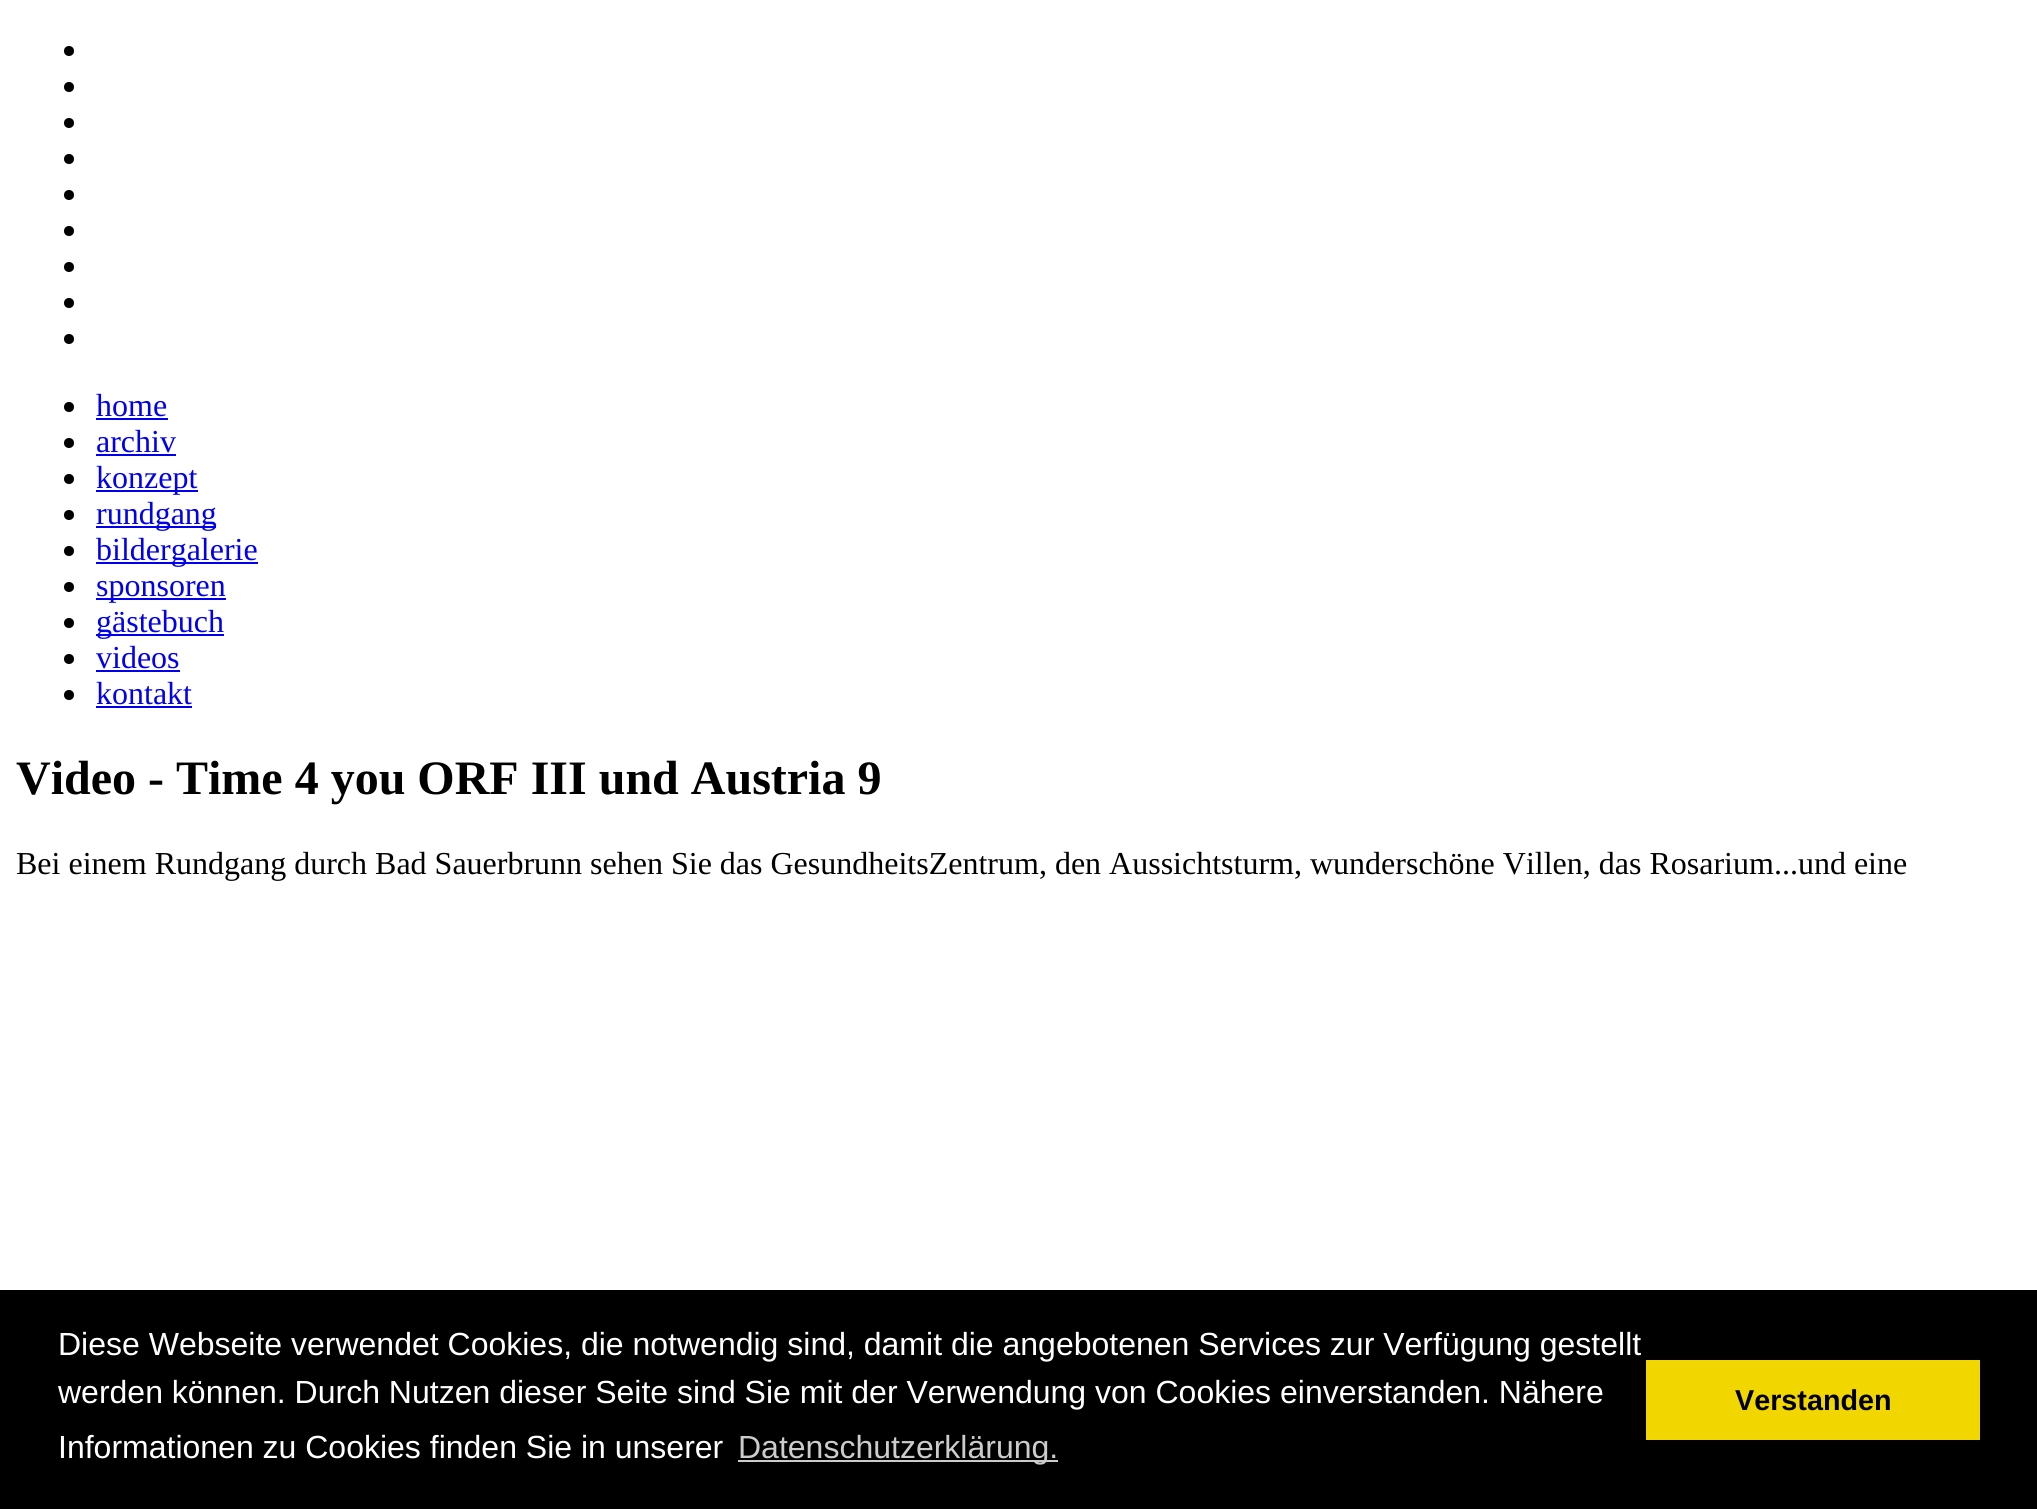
import math
import cairo

surface = cairo.ImageSurface(cairo.FORMAT_RGB24, 2037, 1509)
ctx = cairo.Context(surface)
options = cairo.FontOptions()
options.set_hint_metrics(cairo.HINT_METRICS_OFF)
options.set_hint_style(cairo.HINT_STYLE_NONE)
ctx.set_font_options(options)
ctx.set_miter_limit(4)


ctx.set_source_rgb(1, 1, 1)
ctx.paint()
ctx.set_source_rgb(0, 0, 0)
ctx.arc(69, 51, 5, 0, 2 * math.pi)
ctx.fill()
ctx.arc(69, 87, 5, 0, 2 * math.pi)
ctx.fill()
ctx.arc(69, 123, 5, 0, 2 * math.pi)
ctx.fill()
ctx.arc(69, 159, 5, 0, 2 * math.pi)
ctx.fill()
ctx.arc(69, 195, 5, 0, 2 * math.pi)
ctx.fill()
ctx.arc(69, 231, 5, 0, 2 * math.pi)
ctx.fill()
ctx.arc(69, 267, 5, 0, 2 * math.pi)
ctx.fill()
ctx.arc(69, 303, 5, 0, 2 * math.pi)
ctx.fill()
ctx.arc(69, 339, 5, 0, 2 * math.pi)
ctx.fill()
ctx.arc(69, 407, 5, 0, 2 * math.pi)
ctx.fill()
ctx.select_font_face("Liberation Serif")
ctx.set_font_size(32)
ctx.set_source_rgb(0, 0, 0.933)
ctx.move_to(96, 416)
ctx.show_text("home")
ctx.rectangle(96, 418, 72, 2)
ctx.fill()
ctx.set_source_rgb(0, 0, 0)
ctx.arc(69, 443, 5, 0, 2 * math.pi)
ctx.fill()
ctx.set_source_rgb(0, 0, 0.933)
ctx.move_to(96, 452)
ctx.show_text("archiv")
ctx.rectangle(96, 454, 80, 2)
ctx.fill()
ctx.set_source_rgb(0, 0, 0)
ctx.arc(69, 479, 5, 0, 2 * math.pi)
ctx.fill()
ctx.set_source_rgb(0, 0, 0.933)
ctx.rectangle(96, 490, 102, 2)
ctx.fill()
ctx.move_to(96, 488)
ctx.show_text("konzept")
ctx.set_source_rgb(0, 0, 0)
ctx.new_path()
ctx.arc(69, 515, 5, 0, 2 * math.pi)
ctx.fill()
ctx.set_source_rgb(0, 0, 0.933)
ctx.rectangle(96, 526, 120, 2)
ctx.fill()
ctx.move_to(96, 524)
ctx.show_text("rundgang")
ctx.set_source_rgb(0, 0, 0)
ctx.new_path()
ctx.arc(69, 551, 5, 0, 2 * math.pi)
ctx.fill()
ctx.set_source_rgb(0, 0, 0.933)
ctx.rectangle(96, 562, 162, 2)
ctx.fill()
ctx.move_to(96, 560)
ctx.show_text("bildergalerie")
ctx.set_source_rgb(0, 0, 0)
ctx.new_path()
ctx.arc(69, 587, 5, 0, 2 * math.pi)
ctx.fill()
ctx.set_source_rgb(0, 0, 0.933)
ctx.rectangle(96, 598, 130, 2)
ctx.fill()
ctx.move_to(96, 596)
ctx.show_text("sponsoren")
ctx.set_source_rgb(0, 0, 0)
ctx.new_path()
ctx.arc(69, 623, 5, 0, 2 * math.pi)
ctx.fill()
ctx.set_source_rgb(0, 0, 0.933)
ctx.rectangle(96, 634, 128, 2)
ctx.fill()
ctx.move_to(96, 632)
ctx.show_text("gästebuch")
ctx.set_source_rgb(0, 0, 0)
ctx.new_path()
ctx.arc(69, 659, 5, 0, 2 * math.pi)
ctx.fill()
ctx.set_source_rgb(0, 0, 0.933)
ctx.move_to(96, 668)
ctx.show_text("videos")
ctx.rectangle(96, 670, 84, 2)
ctx.fill()
ctx.set_source_rgb(0, 0, 0)
ctx.arc(69, 695, 5, 0, 2 * math.pi)
ctx.fill()
ctx.set_source_rgb(0, 0, 0.933)
ctx.move_to(96, 704)
ctx.show_text("kontakt")
ctx.rectangle(96, 706, 96, 2)
ctx.fill()
ctx.select_font_face("Liberation Serif", cairo.FONT_SLANT_NORMAL, cairo.FONT_WEIGHT_BOLD)
ctx.set_font_size(48)
ctx.set_source_rgb(0, 0, 0)
ctx.move_to(16, 794)
ctx.show_text("Video - Time 4 you ORF III und Austria 9")
ctx.select_font_face("Liberation Serif")
ctx.set_font_size(32)
ctx.move_to(16, 874)
ctx.show_text("Bei einem Rundgang durch Bad Sauerbrunn sehen Sie das GesundheitsZentrum, den Aussichtsturm, wunderschöne Villen, das Rosarium...und eine")
ctx.rectangle(0, 1290, 2037, 219)
ctx.fill()
ctx.select_font_face("Liberation Sans")
ctx.set_source_rgb(1, 1, 1)
ctx.move_to(58, 1355)
ctx.show_text("Diese Webseite verwendet Cookies, die notwendig sind, damit die angebotenen Services zur Verfügung gestellt")
ctx.move_to(58, 1403)
ctx.show_text("werden können. Durch Nutzen dieser Seite sind Sie mit der Verwendung von Cookies einverstanden. Nähere")
ctx.move_to(58, 1458)
ctx.show_text("Informationen zu Cookies finden Sie in unserer")
ctx.set_source_rgb(0.8, 0.8, 0.8)
ctx.rectangle(738, 1460, 320, 2)
ctx.fill()
ctx.move_to(738, 1458)
ctx.show_text("Datenschutzerklärung.")
ctx.set_source_rgb(0.945, 0.839, 0)
ctx.rectangle(1646, 1360, 334, 80)
ctx.fill()
ctx.select_font_face("Liberation Sans", cairo.FONT_SLANT_NORMAL, cairo.FONT_WEIGHT_BOLD)
ctx.set_font_size(28.75)
ctx.set_source_rgb(0, 0, 0)
ctx.move_to(1735, 1410)
ctx.show_text("Verstanden")
surface.write_to_png("page.png")
